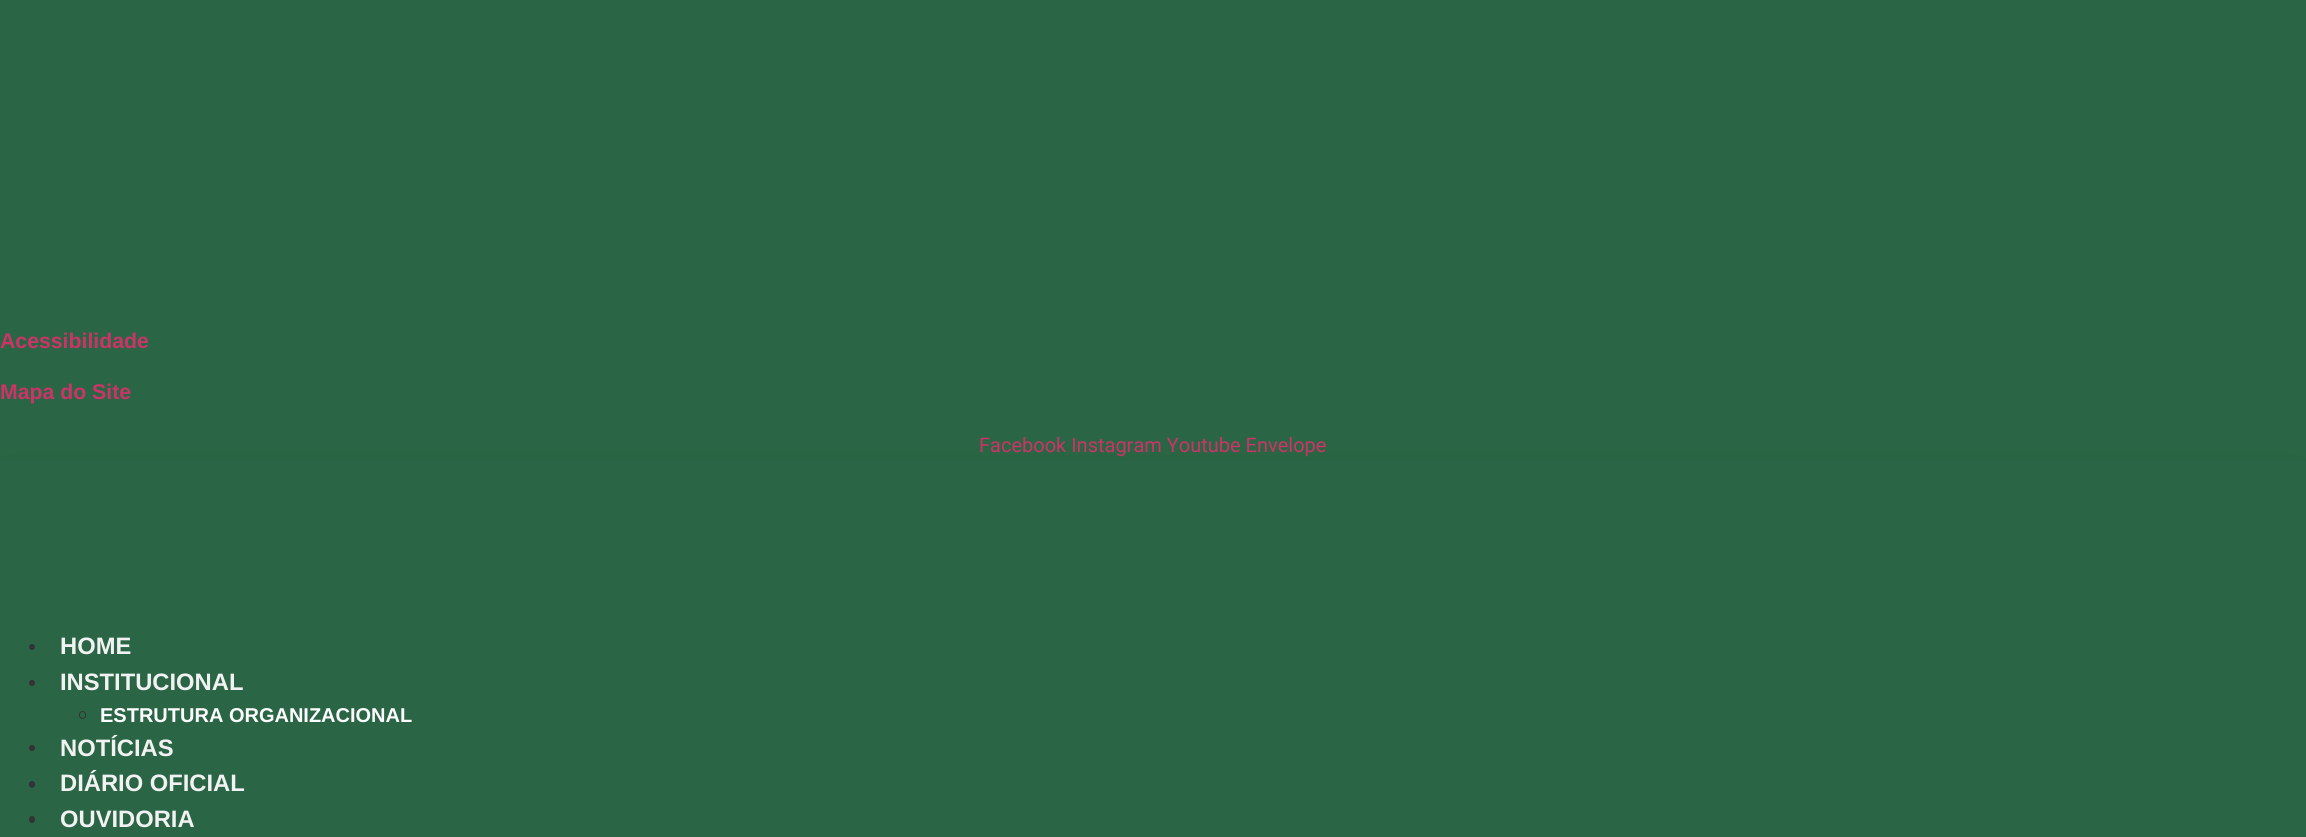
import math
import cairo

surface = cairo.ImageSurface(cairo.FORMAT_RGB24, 2306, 837)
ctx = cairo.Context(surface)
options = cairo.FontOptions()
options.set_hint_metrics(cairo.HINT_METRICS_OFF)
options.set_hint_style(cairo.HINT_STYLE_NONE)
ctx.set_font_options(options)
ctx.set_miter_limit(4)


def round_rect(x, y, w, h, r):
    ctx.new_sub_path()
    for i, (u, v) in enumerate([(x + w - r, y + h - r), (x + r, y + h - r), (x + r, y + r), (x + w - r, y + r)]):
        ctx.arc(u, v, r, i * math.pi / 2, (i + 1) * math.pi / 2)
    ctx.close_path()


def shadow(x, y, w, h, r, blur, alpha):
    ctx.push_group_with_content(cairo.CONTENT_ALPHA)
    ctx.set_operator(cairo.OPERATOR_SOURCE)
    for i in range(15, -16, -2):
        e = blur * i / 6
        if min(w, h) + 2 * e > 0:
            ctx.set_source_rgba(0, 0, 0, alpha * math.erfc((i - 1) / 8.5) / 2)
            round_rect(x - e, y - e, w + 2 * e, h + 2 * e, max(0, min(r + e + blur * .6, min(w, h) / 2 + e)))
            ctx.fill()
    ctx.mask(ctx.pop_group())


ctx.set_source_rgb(0.165, 0.4, 0.271)
ctx.paint()
ctx.select_font_face("Liberation Sans", cairo.FONT_SLANT_NORMAL, cairo.FONT_WEIGHT_BOLD)
ctx.set_font_size(21.25)
ctx.set_source_rgb(0.8, 0.2, 0.4)
ctx.move_to(0, 348)
ctx.show_text("Acessibilidade")
ctx.move_to(0, 399)
ctx.show_text("Mapa do Site")
ctx.set_source_rgb(0, 0, 0)
shadow(9, 486, 2289, 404, 0, 17.5, 0.5)
ctx.select_font_face("Roboto")
ctx.set_font_size(20)
ctx.set_source_rgb(0.8, 0.2, 0.4)
ctx.move_to(979, 452)
ctx.show_text("Facebook Instagram Youtube Envelope")
ctx.set_source_rgb(0.165, 0.4, 0.271)
ctx.rectangle(0, 460, 2306, 377)
ctx.fill()
ctx.set_source_rgb(0.2, 0.2, 0.2)
ctx.arc(32, 647, 3, 0, 2 * math.pi)
ctx.fill()
ctx.select_font_face("Liberation Sans", cairo.FONT_SLANT_NORMAL, cairo.FONT_WEIGHT_BOLD)
ctx.set_font_size(23.75)
ctx.set_source_rgb(0.949, 0.949, 0.949)
ctx.move_to(60, 654)
ctx.show_text("HOME")
ctx.set_source_rgb(0.2, 0.2, 0.2)
ctx.new_path()
ctx.arc(32, 683, 3, 0, 2 * math.pi)
ctx.fill()
ctx.set_source_rgb(0.949, 0.949, 0.949)
ctx.move_to(60, 690)
ctx.show_text("INSTITUCIONAL")
round_rect(79.5, 711.5, 6, 7, 3)
ctx.set_source_rgb(0.2, 0.2, 0.2)
ctx.set_line_width(1)
ctx.stroke()
ctx.set_font_size(20)
ctx.set_source_rgb(1, 1, 1)
ctx.move_to(100, 722)
ctx.show_text("ESTRUTURA ORGANIZACIONAL")
ctx.set_source_rgb(0.2, 0.2, 0.2)
ctx.new_path()
ctx.arc(32, 748, 3, 0, 2 * math.pi)
ctx.fill()
ctx.set_font_size(23.75)
ctx.set_source_rgb(0.949, 0.949, 0.949)
ctx.move_to(60, 756)
ctx.show_text("NOTÍCIAS")
ctx.set_source_rgb(0.2, 0.2, 0.2)
round_rect(29, 781, 6, 7, 3)
ctx.fill()
ctx.set_source_rgb(0.949, 0.949, 0.949)
ctx.move_to(60, 791)
ctx.show_text("DIÁRIO OFICIAL")
ctx.set_source_rgb(0.2, 0.2, 0.2)
round_rect(29, 816, 6, 7, 3)
ctx.fill()
ctx.set_source_rgb(0.949, 0.949, 0.949)
ctx.move_to(60, 827)
ctx.show_text("OUVIDORIA")
surface.write_to_png("page.png")
